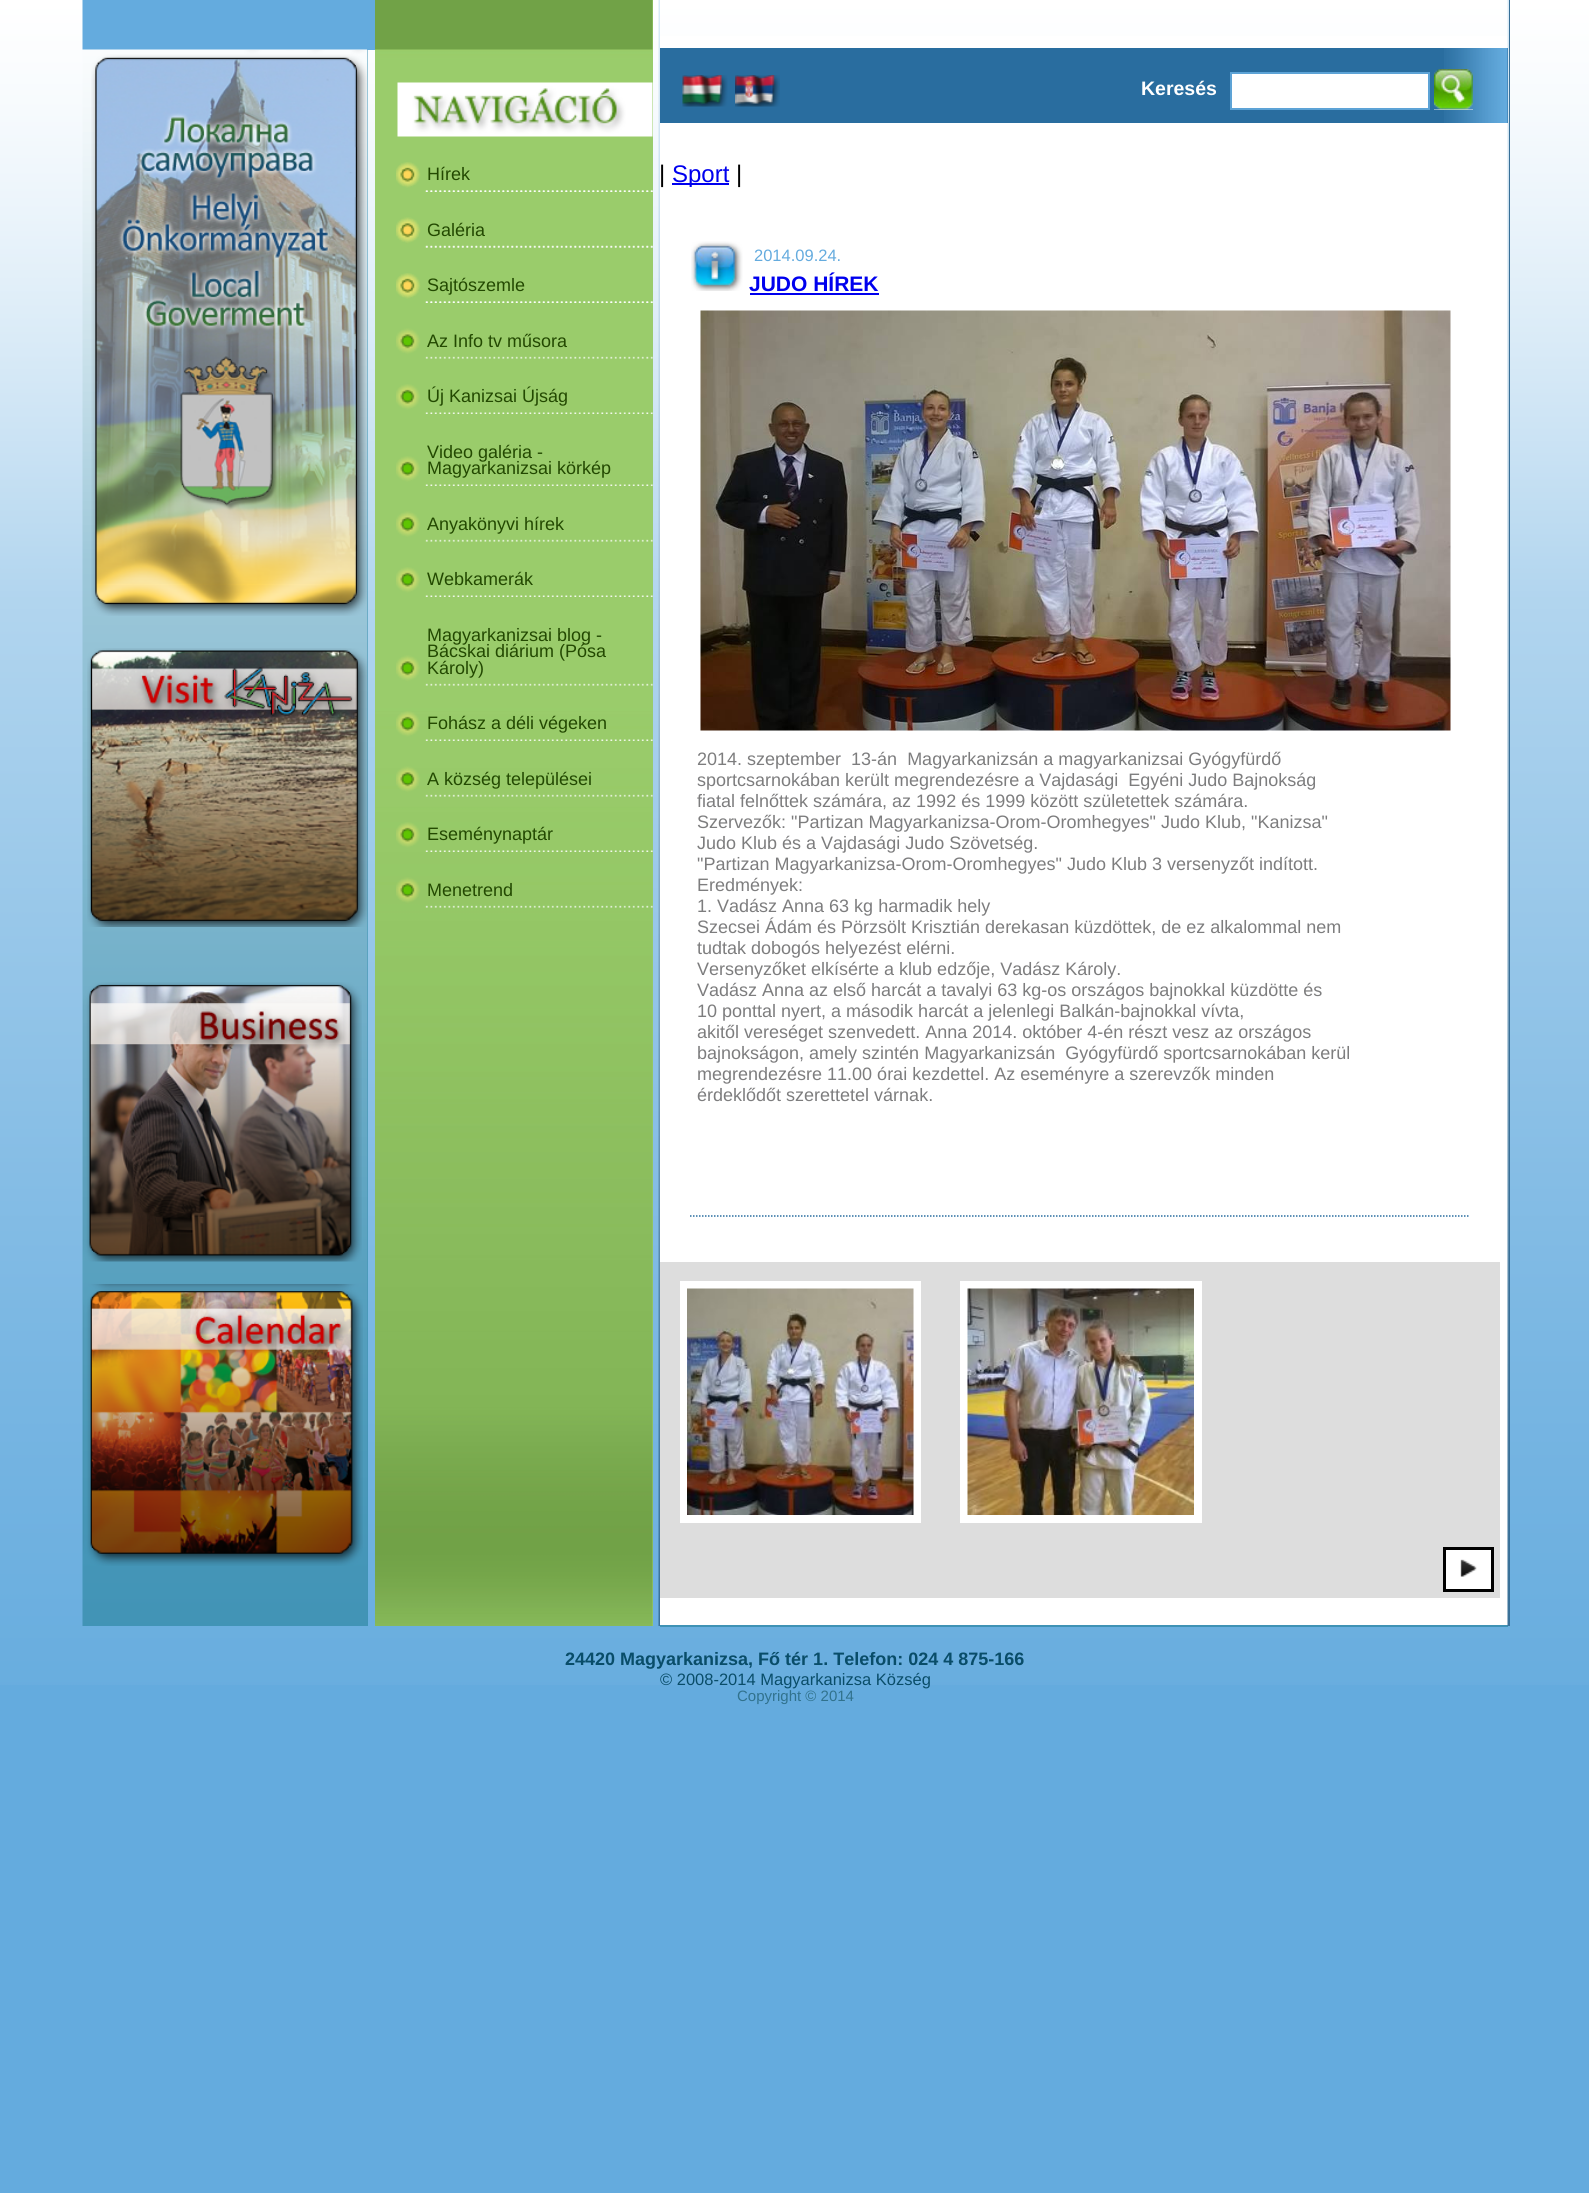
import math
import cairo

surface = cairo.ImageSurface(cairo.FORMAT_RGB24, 1589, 2193)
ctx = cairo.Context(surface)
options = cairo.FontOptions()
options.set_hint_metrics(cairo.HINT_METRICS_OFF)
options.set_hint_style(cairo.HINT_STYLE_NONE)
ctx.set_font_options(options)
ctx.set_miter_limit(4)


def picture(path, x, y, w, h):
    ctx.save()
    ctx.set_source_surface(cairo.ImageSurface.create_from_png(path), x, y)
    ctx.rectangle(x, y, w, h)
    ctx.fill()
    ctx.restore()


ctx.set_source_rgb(0.392, 0.671, 0.871)
ctx.paint()
picture("img1.png", 0, 0, 1589, 1685)
ctx.set_source_rgb(0.247, 0.573, 0.71)
ctx.rectangle(367, 50, 1, 1576)
ctx.fill()
picture("img2.png", 82, 0, 286, 1626)
picture("img3.png", 91, 50, 276, 566)
picture("img4.png", 87, 648, 281, 279)
picture("img5.png", 83, 982, 279, 280)
picture("img6.png", 83, 1284, 280, 282)
ctx.set_source_rgb(0.392, 0.671, 0.871)
ctx.rectangle(367, 0, 8, 50)
ctx.fill()
ctx.set_source_rgb(0.6, 0.8, 0.416)
ctx.rectangle(652, 0, 1, 1626)
ctx.fill()
picture("img7.png", 375, 0, 278, 1626)
picture("img8.png", 397, 82, 256, 55)
picture("img9.png", 396, 162, 257, 30)
picture("img10.png", 396, 162, 257, 30)
ctx.select_font_face("Liberation Sans")
ctx.set_font_size(18)
ctx.set_source_rgb(0.137, 0.286, 0.004)
ctx.move_to(427, 180)
ctx.show_text("Hírek")
picture("img11.png", 396, 217, 257, 31)
picture("img12.png", 396, 217, 257, 31)
ctx.move_to(427, 236)
ctx.show_text("Galéria")
picture("img9.png", 396, 273, 257, 30)
picture("img10.png", 396, 273, 257, 30)
ctx.move_to(427, 291)
ctx.show_text("Sajtószemle")
picture("img11.png", 396, 328, 257, 31)
ctx.move_to(427, 347)
ctx.show_text("Az Info tv műsora")
picture("img9.png", 396, 384, 257, 30)
ctx.move_to(427, 402)
ctx.show_text("Új Kanizsai Újság")
picture("img9.png", 396, 456, 257, 30)
ctx.move_to(427, 458)
ctx.show_text("Video galéria -")
ctx.move_to(427, 474)
ctx.show_text("Magyarkanizsai körkép")
picture("img11.png", 396, 511, 257, 31)
ctx.move_to(427, 530)
ctx.show_text("Anyakönyvi hírek")
picture("img9.png", 396, 567, 257, 30)
ctx.move_to(427, 585)
ctx.show_text("Webkamerák")
picture("img11.png", 396, 655, 257, 31)
ctx.move_to(427, 641)
ctx.show_text("Magyarkanizsai blog -")
ctx.move_to(427, 657)
ctx.show_text("Bácskai diárium (Pósa")
ctx.move_to(427, 674)
ctx.show_text("Károly)")
picture("img13.png", 396, 711, 257, 30)
ctx.move_to(427, 729)
ctx.show_text("Fohász a déli végeken")
picture("img14.png", 396, 766, 257, 31)
ctx.move_to(427, 785)
ctx.show_text("A község települései")
picture("img15.png", 396, 822, 257, 30)
ctx.move_to(427, 840)
ctx.show_text("Eseménynaptár")
picture("img16.png", 396, 877, 257, 31)
ctx.move_to(427, 896)
ctx.show_text("Menetrend")
picture("img17.png", 658, 0, 2, 1626)
ctx.set_source_rgb(1, 1, 1)
ctx.rectangle(660, 36, 848, 1589)
ctx.fill()
ctx.set_source_rgb(0.247, 0.573, 0.71)
ctx.rectangle(660, 1625, 848, 2)
ctx.fill()
picture("img27.png", 1507, 0, 2, 1626)
ctx.set_source_rgb(0.161, 0.427, 0.624)
ctx.rectangle(660, 48, 848, 75)
ctx.fill()
picture("img18.png", 1444, 48, 64, 75)
picture("img19.png", 682, 75, 46, 32)
picture("img20.png", 735, 75, 45, 32)
ctx.select_font_face("Liberation Sans", cairo.FONT_SLANT_NORMAL, cairo.FONT_WEIGHT_BOLD)
ctx.set_font_size(19.5)
ctx.set_source_rgb(1, 1, 1)
ctx.move_to(1141, 95)
ctx.show_text("Keresés")
ctx.rectangle(1231, 73, 198, 36)
ctx.fill_preserve()
ctx.set_source_rgb(0.365, 0.639, 0.839)
ctx.stroke()
ctx.set_source_rgb(0.937, 0.937, 0.937)
ctx.rectangle(1434, 109, 39, 1)
ctx.fill()
picture("img21.png", 1434, 69, 39, 41)
ctx.select_font_face("Liberation Sans")
ctx.set_font_size(24)
ctx.set_source_rgb(0, 0, 0)
ctx.move_to(659, 182)
ctx.show_text("|")
ctx.set_source_rgb(0, 0, 0.933)
ctx.rectangle(672, 183, 57, 2)
ctx.fill()
ctx.move_to(672, 182)
ctx.show_text("Sport")
ctx.set_source_rgb(0, 0, 0)
ctx.move_to(736, 182)
ctx.show_text("|")
picture("img22.png", 691, 241, 52, 50)
ctx.set_font_size(16.5)
ctx.set_source_rgb(0.392, 0.671, 0.871)
ctx.move_to(754, 261)
ctx.show_text("2014.09.24.")
ctx.select_font_face("Liberation Sans", cairo.FONT_SLANT_NORMAL, cairo.FONT_WEIGHT_BOLD)
ctx.set_font_size(21)
ctx.set_source_rgb(0, 0, 0.933)
ctx.move_to(749, 291)
ctx.show_text("JUDO HÍREK")
ctx.rectangle(750, 293, 129, 2)
ctx.fill()
ctx.new_path()
ctx.move_to(690, 1216)
ctx.line_to(1470, 1216)
ctx.set_source_rgb(0.161, 0.427, 0.624)
ctx.set_line_width(1.5)
ctx.set_dash([1.5, 1.5])
ctx.stroke()
picture("img23.png", 700, 310, 751, 421)
ctx.select_font_face("Liberation Sans")
ctx.set_font_size(18)
ctx.set_source_rgb(0.49, 0.49, 0.494)
ctx.move_to(697, 765)
ctx.show_text("2014. szeptember  13-án  Magyarkanizsán a magyarkanizsai Gyógyfürdő")
ctx.move_to(697, 786)
ctx.show_text("sportcsarnokában került megrendezésre a Vajdasági  Egyéni Judo Bajnokság")
ctx.move_to(697, 807)
ctx.show_text("fiatal felnőttek számára, az 1992 és 1999 között születettek számára.")
ctx.move_to(697, 828)
ctx.show_text("Szervezők: \"Partizan Magyarkanizsa-Orom-Oromhegyes\" Judo Klub, \"Kanizsa\"")
ctx.move_to(697, 849)
ctx.show_text("Judo Klub és a Vajdasági Judo Szövetség.")
ctx.move_to(697, 870)
ctx.show_text("\"Partizan Magyarkanizsa-Orom-Oromhegyes\" Judo Klub 3 versenyzőt indított.")
ctx.move_to(697, 891)
ctx.show_text("Eredmények:")
ctx.move_to(697, 912)
ctx.show_text("1. Vadász Anna 63 kg harmadik hely")
ctx.move_to(697, 933)
ctx.show_text("Szecsei Ádám és Pörzsölt Krisztián derekasan küzdöttek, de ez alkalommal nem")
ctx.move_to(697, 954)
ctx.show_text("tudtak dobogós helyezést elérni.")
ctx.move_to(697, 975)
ctx.show_text("Versenyzőket elkísérte a klub edzője, Vadász Károly.")
ctx.move_to(697, 996)
ctx.show_text("Vadász Anna az első harcát a tavalyi 63 kg-os országos bajnokkal küzdötte és")
ctx.move_to(697, 1017)
ctx.show_text("10 ponttal nyert, a második harcát a jelenlegi Balkán-bajnokkal vívta,")
ctx.move_to(697, 1038)
ctx.show_text("akitől vereséget szenvedett. Anna 2014. október 4-én részt vesz az országos")
ctx.move_to(697, 1059)
ctx.show_text("bajnokságon, amely szintén Magyarkanizsán  Gyógyfürdő sportcsarnokában kerül")
ctx.move_to(697, 1080)
ctx.show_text("megrendezésre 11.00 órai kezdettel. Az eseményre a szerevzők minden")
ctx.move_to(697, 1101)
ctx.show_text("érdeklődőt szerettetel várnak.")
ctx.set_source_rgb(0.867, 0.867, 0.867)
ctx.rectangle(660, 1262, 840, 336)
ctx.fill()
ctx.rectangle(684, 1285, 233, 234)
ctx.set_source_rgb(1, 1, 1)
ctx.set_line_width(8)
ctx.set_dash([])
ctx.stroke()
picture("img24.png", 687, 1288, 227, 227)
ctx.rectangle(964, 1285, 234, 234)
ctx.stroke()
picture("img25.png", 967, 1288, 227, 227)
ctx.rectangle(1444.5, 1548.5, 48, 42)
ctx.fill_preserve()
ctx.set_source_rgb(0, 0, 0)
ctx.set_line_width(3)
ctx.stroke()
picture("img26.png", 1460, 1559, 17, 18)
ctx.set_source_rgb(0.216, 0.435, 0.592)
ctx.rectangle(1509, 0, 1, 1626)
ctx.fill()
ctx.select_font_face("Liberation Sans", cairo.FONT_SLANT_NORMAL, cairo.FONT_WEIGHT_BOLD)
ctx.set_source_rgb(0.039, 0.302, 0.412)
ctx.move_to(565, 1665)
ctx.show_text("24420 Magyarkanizsa, Fő tér 1. Telefon: 024 4 875-166")
ctx.select_font_face("Liberation Sans")
ctx.set_font_size(16.5)
ctx.move_to(660, 1685)
ctx.show_text("© 2008-2014 Magyarkanizsa Község")
ctx.set_font_size(15)
ctx.set_source_rgb(0.192, 0.447, 0.553)
ctx.move_to(737, 1701)
ctx.show_text("Copyright © 2014")
surface.write_to_png("page.png")
